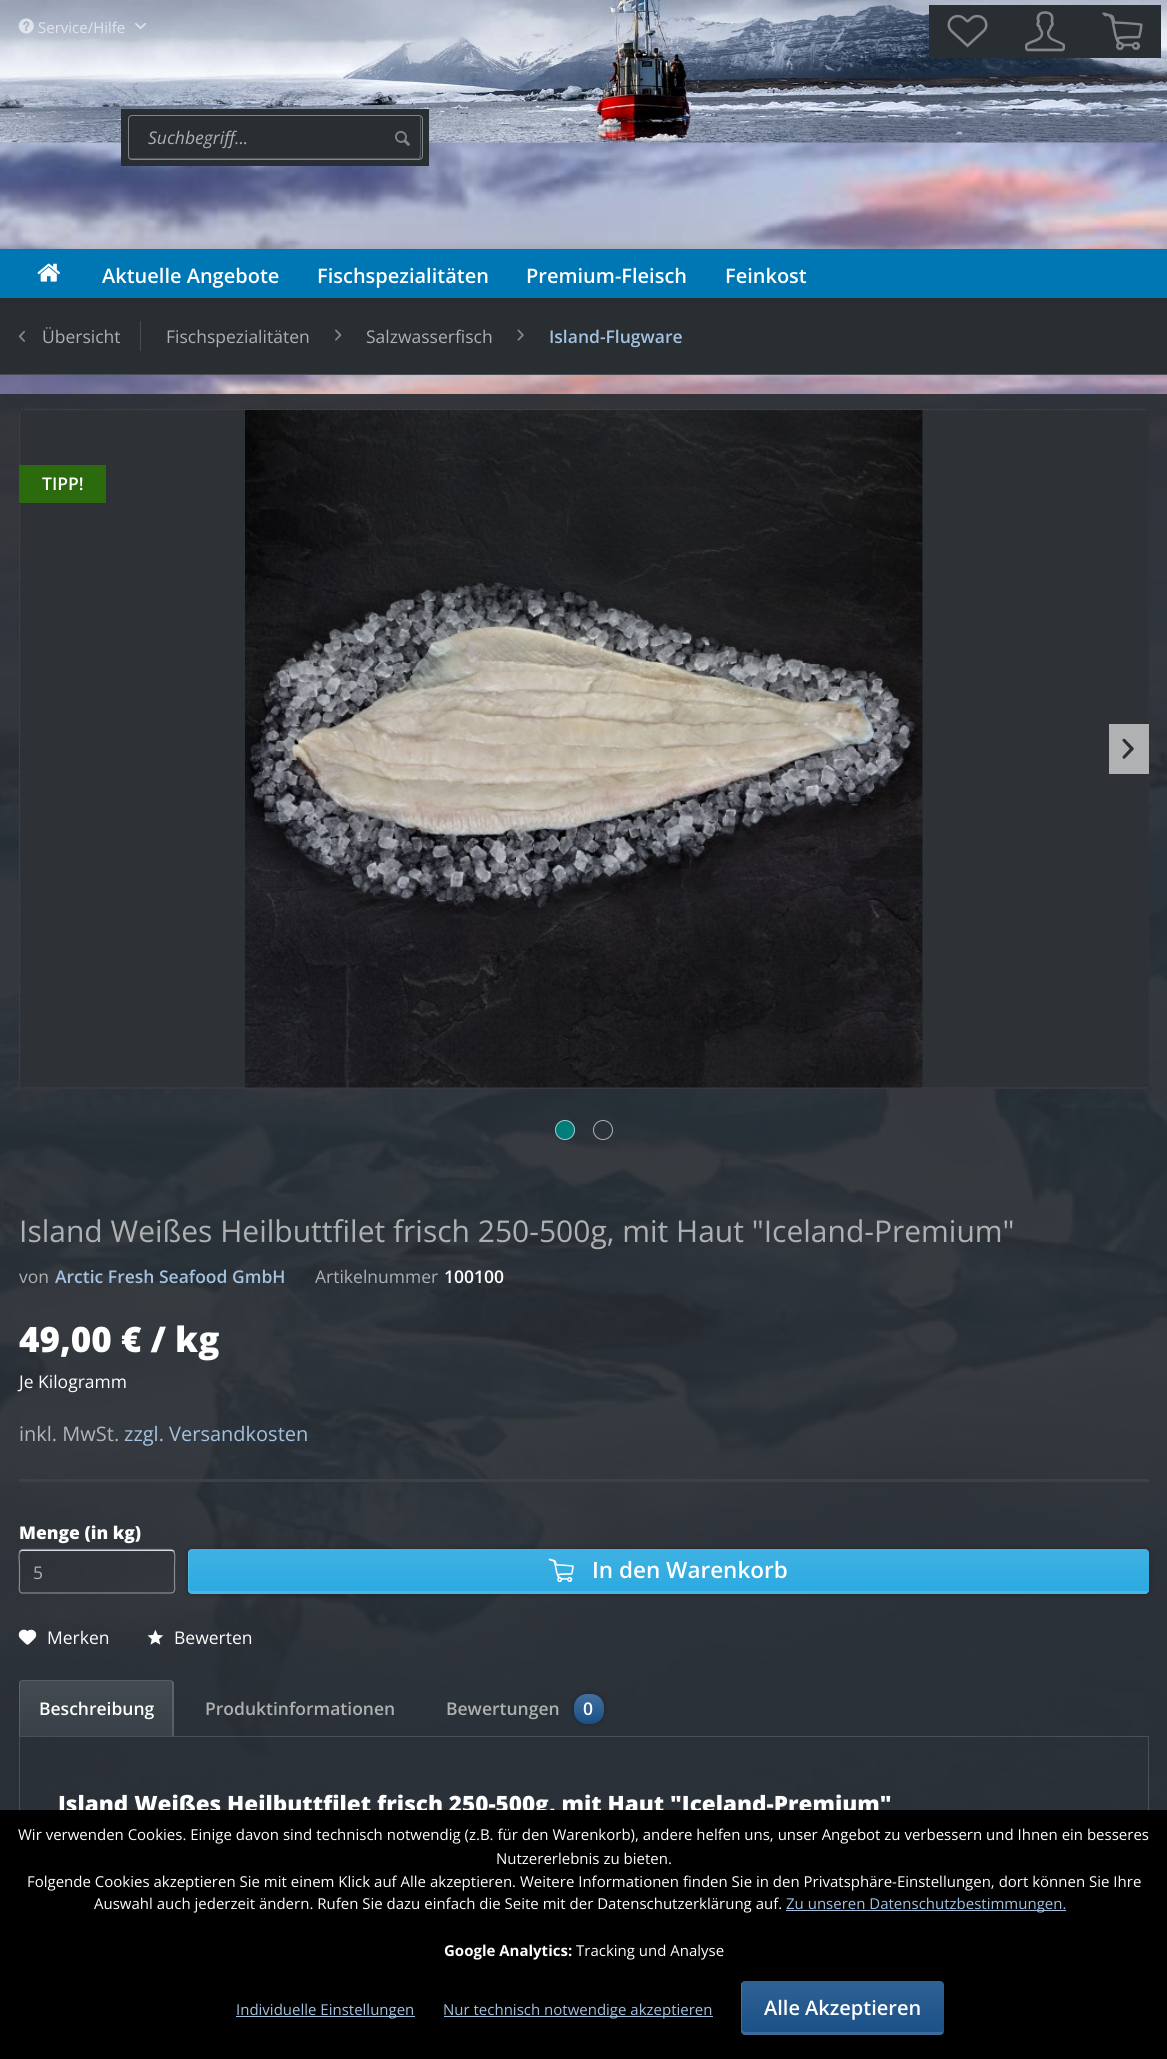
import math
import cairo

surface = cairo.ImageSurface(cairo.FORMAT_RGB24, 1167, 2059)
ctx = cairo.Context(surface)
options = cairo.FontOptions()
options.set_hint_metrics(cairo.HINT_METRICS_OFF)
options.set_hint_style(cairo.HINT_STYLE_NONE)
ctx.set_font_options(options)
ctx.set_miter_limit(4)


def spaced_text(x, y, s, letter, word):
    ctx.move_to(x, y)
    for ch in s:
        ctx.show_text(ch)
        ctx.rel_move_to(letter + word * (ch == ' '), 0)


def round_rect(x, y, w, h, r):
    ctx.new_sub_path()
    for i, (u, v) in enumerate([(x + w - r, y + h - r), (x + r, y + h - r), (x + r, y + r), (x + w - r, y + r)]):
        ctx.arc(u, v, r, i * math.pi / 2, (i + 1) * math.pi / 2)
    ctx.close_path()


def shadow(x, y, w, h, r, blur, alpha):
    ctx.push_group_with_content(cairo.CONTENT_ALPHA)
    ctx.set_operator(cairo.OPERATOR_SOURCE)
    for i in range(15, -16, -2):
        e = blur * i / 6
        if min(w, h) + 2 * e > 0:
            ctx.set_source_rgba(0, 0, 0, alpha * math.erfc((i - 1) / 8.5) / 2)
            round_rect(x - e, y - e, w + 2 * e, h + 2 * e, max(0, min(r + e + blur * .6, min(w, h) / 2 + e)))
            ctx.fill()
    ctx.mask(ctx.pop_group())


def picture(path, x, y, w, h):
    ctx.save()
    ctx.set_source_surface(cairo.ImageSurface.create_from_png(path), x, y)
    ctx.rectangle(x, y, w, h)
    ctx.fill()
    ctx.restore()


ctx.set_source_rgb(1, 1, 1)
ctx.paint()
picture("img1.png", 0, 142, 1167, 1668)
picture("img2.png", 0, 0, 1167, 143)
picture("img3.png", 18, 18, 16, 16)
ctx.select_font_face("Open Sans")
ctx.set_font_size(15)
ctx.set_source_rgb(0.882, 0.894, 0.922)
ctx.move_to(38, 33)
ctx.show_text("Service/Hilfe")
picture("img4.png", 135, 23, 11, 6)
ctx.set_source_rgb(0.161, 0.18, 0.2)
ctx.rectangle(929, 5, 232, 53)
ctx.fill()
picture("img5.png", 947, 14, 41, 34)
picture("img6.png", 1025, 11, 40, 41)
picture("img7.png", 1102, 12, 41, 39)
ctx.rectangle(121, 109, 308, 57)
ctx.fill()
ctx.set_source_rgb(0.329, 0.345, 0.361)
ctx.new_path()
ctx.move_to(129, 158)
ctx.curve_to(130, 158, 131, 159, 132, 159)
ctx.line_to(418, 159)
ctx.curve_to(420, 159, 421, 158, 421, 156)
ctx.line_to(421, 118)
ctx.curve_to(421, 118, 420, 117, 420, 116)
ctx.line_to(420, 143)
ctx.curve_to(420, 144, 421, 158, 418, 158)
ctx.close_path()
ctx.fill()
round_rect(128.5, 115.5, 294, 44, 3.5)
ctx.set_source_rgba(1, 1, 1, 0.42)
ctx.set_line_width(1)
ctx.stroke()
ctx.select_font_face("Open Sans", cairo.FONT_SLANT_ITALIC)
ctx.set_font_size(17.5)
ctx.set_source_rgb(0.682, 0.69, 0.694)
ctx.move_to(148, 144)
ctx.show_text("Suchbegriff...")
picture("img8.png", 395, 131, 15, 15)
ctx.set_source_rgb(0.161, 0.18, 0.2)
ctx.rectangle(0, 298, 1167, 76)
ctx.fill()
ctx.set_source_rgb(0, 0, 0)
shadow(0, 249, 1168, 49, 0, 6, 0.15)
ctx.set_source_rgb(0, 0.467, 0.71)
ctx.rectangle(0, 249, 1167, 49)
ctx.fill()
picture("img9.png", 37, 263, 23, 19)
ctx.select_font_face("Open Sans SemiBold")
ctx.set_font_size(20)
ctx.set_source_rgb(1, 1, 1)
ctx.move_to(102, 283)
ctx.show_text("Aktuelle Angebote")
ctx.move_to(317, 283)
ctx.show_text("Fischspezialitäten")
ctx.move_to(526, 283)
ctx.show_text("Premium-Fleisch")
ctx.move_to(725, 283)
ctx.show_text("Feinkost")
ctx.set_source_rgb(0.286, 0.302, 0.322)
ctx.rectangle(0, 374, 1167, 1)
ctx.fill()
picture("img10.png", 18, 330, 7, 12)
ctx.rectangle(140, 321, 1, 30)
ctx.fill()
ctx.select_font_face("Open Sans")
ctx.set_font_size(17.5)
ctx.set_source_rgb(0.682, 0.69, 0.694)
ctx.move_to(42, 343)
ctx.show_text("Übersicht")
ctx.move_to(166, 343)
ctx.show_text("Fischspezialitäten")
picture("img11.png", 335, 329, 7, 12)
ctx.move_to(366, 343)
ctx.show_text("Salzwasserfisch")
picture("img12.png", 517, 329, 7, 12)
ctx.select_font_face("Open Sans SemiBold")
ctx.set_source_rgb(0.639, 0.757, 0.878)
ctx.move_to(549, 343)
ctx.show_text("Island-Flugware")
ctx.set_source_rgba(0.161, 0.18, 0.2, 0.93)
ctx.rectangle(0, 394, 1167, 1416)
ctx.fill()
ctx.set_source_rgb(0.18, 0.196, 0.212)
round_rect(19, 409, 1130, 680, 4)
ctx.fill()
ctx.save()
round_rect(19, 409, 1130, 680, 4)
ctx.clip()
ctx.new_path()
ctx.move_to(19, 409.5)
ctx.line_to(1150, 409.5)
ctx.set_source_rgb(0.31, 0.267, 0.341)
ctx.set_line_width(1.2)
ctx.set_dash([1.25, 1.25])
ctx.stroke()
ctx.new_path()
ctx.move_to(1149.5, 409)
ctx.line_to(1149.5, 1089)
ctx.stroke()
ctx.new_path()
ctx.move_to(19, 1088)
ctx.line_to(1150, 1088)
ctx.stroke()
ctx.new_path()
ctx.move_to(19.5, 409)
ctx.line_to(19.5, 1089)
ctx.stroke()
ctx.restore()
picture("img13.png", 245, 410, 678, 678)
ctx.set_source_rgb(0.173, 0.416, 0.055)
ctx.rectangle(19, 465, 87, 38)
ctx.fill()
ctx.set_source_rgb(1, 1, 1)
ctx.move_to(42, 490)
ctx.show_text("TIPP!")
ctx.set_source_rgba(1, 1, 1, 0.62)
ctx.rectangle(1109, 724, 40, 50)
ctx.fill()
picture("img14.png", 1122, 738, 12, 21)
ctx.set_source_rgb(0, 0.486, 0.482)
ctx.arc(565, 1130, 10, 0, 2 * math.pi)
ctx.fill()
ctx.arc(565, 1130, 9.5, 0, 2 * math.pi)
ctx.set_source_rgba(1, 1, 1, 0.62)
ctx.stroke()
ctx.arc(603, 1130, 9.5, 0, 2 * math.pi)
ctx.stroke()
ctx.select_font_face("Open Sans")
ctx.set_font_size(30)
ctx.set_source_rgb(0.682, 0.69, 0.694)
ctx.move_to(19, 1242)
ctx.show_text("Island Weißes Heilbuttfilet frisch 250-500g, mit Haut \"Iceland-Premium\"")
ctx.set_font_size(17.5)
ctx.move_to(19, 1283)
ctx.show_text("von")
ctx.select_font_face("Open Sans SemiBold")
ctx.set_source_rgb(0.639, 0.757, 0.878)
ctx.move_to(55, 1283)
ctx.show_text("Arctic Fresh Seafood GmbH")
ctx.select_font_face("Open Sans")
ctx.set_source_rgb(0.682, 0.69, 0.694)
ctx.move_to(315, 1283)
ctx.show_text("Artikelnummer")
ctx.select_font_face("Open Sans SemiBold")
ctx.set_source_rgb(1, 1, 1)
ctx.move_to(444, 1283)
ctx.show_text("100100")
ctx.select_font_face("Open Sans ExtraBold")
ctx.set_font_size(35)
ctx.move_to(19, 1352)
ctx.show_text("49,00 € / kg")
ctx.select_font_face("Open Sans")
ctx.set_font_size(17.5)
ctx.move_to(19, 1388)
ctx.show_text("Je Kilogramm")
ctx.set_font_size(20)
ctx.set_source_rgb(0.702, 0.71, 0.718)
ctx.move_to(19, 1441)
ctx.show_text("inkl. MwSt.")
ctx.set_source_rgb(0.639, 0.757, 0.878)
ctx.move_to(124, 1441)
ctx.show_text("zzgl. Versandkosten")
ctx.set_source_rgb(0.243, 0.255, 0.263)
ctx.rectangle(19, 1479, 1130, 3)
ctx.fill()
ctx.select_font_face("Open Sans ExtraBold")
ctx.set_font_size(17.5)
ctx.set_source_rgb(1, 1, 1)
ctx.move_to(19, 1539)
ctx.show_text("Menge (in kg)")
ctx.set_source_rgb(0.855, 0.855, 0.898)
ctx.new_path()
ctx.move_to(22, 1551)
ctx.line_to(171, 1551)
ctx.curve_to(173, 1551, 174, 1552, 174, 1554)
ctx.curve_to(174, 1552, 174, 1550, 172, 1550)
ctx.line_to(22, 1550)
ctx.curve_to(20, 1550, 20, 1552, 20, 1554)
ctx.curve_to(20, 1552, 21, 1551, 22, 1551)
ctx.close_path()
ctx.fill()
ctx.new_path()
ctx.move_to(20.5, 1550.5)
ctx.line_to(22, 1549.5)
ctx.line_to(146.5, 1549.5)
ctx.line_to(171, 1549.5)
ctx.line_to(173.5, 1550.5)
ctx.set_source_rgba(0.949, 0.949, 0.949, 0.42)
ctx.set_line_width(1.2)
ctx.stroke()
ctx.new_path()
ctx.move_to(173.5, 1550.5)
ctx.curve_to(175.5, 1552.5, 174.5, 1562.5, 174.5, 1565)
ctx.line_to(174.5, 1584)
ctx.curve_to(174.5, 1586, 176, 1593, 171, 1593)
ctx.line_to(22.5, 1593)
ctx.curve_to(18, 1593, 19.5, 1586, 19.5, 1584)
ctx.line_to(19.5, 1565)
ctx.curve_to(19.5, 1562.5, 18, 1552.5, 20.5, 1550.5)
ctx.set_source_rgba(1, 1, 1, 0.42)
ctx.stroke()
ctx.select_font_face("Open Sans")
ctx.set_source_rgb(0.682, 0.69, 0.694)
ctx.move_to(33, 1579)
ctx.show_text("5")
ctx.set_source_rgb(0, 0, 0)
shadow(188, 1549, 961, 45, 4, 3, 0.3)
ctx.set_source_rgb(0.165, 0.663, 0.878)
round_rect(188, 1549, 961, 45, 4)
ctx.fill()
gradient = cairo.LinearGradient(668, 1549, 668, 1594)
gradient.add_color_stop_rgba(0, 1, 1, 1, 0.1)
gradient.add_color_stop_rgba(1, 1, 1, 1, 0)
ctx.set_source(gradient)
round_rect(188, 1549, 961, 45, 4)
ctx.fill()
ctx.set_source_rgba(1, 1, 1, 0.15)
ctx.new_path()
ctx.move_to(189, 1550)
ctx.curve_to(188, 1551, 188, 1552, 188, 1553)
ctx.line_to(188, 1590)
ctx.curve_to(188, 1592, 190, 1594, 192, 1594)
ctx.line_to(1145, 1594)
ctx.curve_to(1147, 1594, 1149, 1592, 1149, 1590)
ctx.curve_to(1148, 1591, 1147, 1591, 1146, 1591)
ctx.line_to(192, 1591)
ctx.curve_to(190, 1591, 189, 1590, 189, 1588)
ctx.close_path()
ctx.fill()
picture("img15.png", 548, 1558, 26, 25)
ctx.select_font_face("Open Sans SemiBold")
ctx.set_font_size(22.5)
ctx.set_source_rgb(1, 1, 1)
ctx.move_to(592, 1578)
ctx.show_text("In den Warenkorb")
picture("img16.png", 18, 1629, 19, 16)
ctx.select_font_face("Open Sans")
ctx.set_font_size(17.5)
ctx.move_to(47, 1644)
ctx.show_text("Merken")
picture("img17.png", 147, 1629, 17, 16)
ctx.move_to(174, 1644)
ctx.show_text("Bewerten")
ctx.set_source_rgb(0.235, 0.263, 0.29)
ctx.new_path()
ctx.move_to(23, 1680)
ctx.line_to(170, 1680)
ctx.curve_to(172, 1680, 174, 1682, 174, 1684)
ctx.line_to(174, 1736)
ctx.line_to(19, 1736)
ctx.line_to(19, 1684)
ctx.curve_to(19, 1682, 21, 1680, 23, 1680)
ctx.close_path()
ctx.fill()
gradient = cairo.LinearGradient(96, 1626, 96, 1681)
gradient.add_color_stop_rgba(0, 1, 1, 1, 0.04)
gradient.add_color_stop_rgba(1, 0, 0, 0, 0.04)
ctx.set_source(gradient)
ctx.rectangle(19, 1680, 155, 1)
ctx.fill()
gradient = cairo.LinearGradient(96, 1681, 96, 1736)
gradient.add_color_stop_rgba(0, 1, 1, 1, 0.04)
gradient.add_color_stop_rgba(1, 0, 0, 0, 0.04)
ctx.set_source(gradient)
ctx.rectangle(19, 1681, 155, 55)
ctx.fill()
ctx.set_source_rgba(1, 1, 1, 0.15)
ctx.set_fill_rule(cairo.FILL_RULE_EVEN_ODD)
ctx.new_path()
ctx.move_to(22, 1680)
ctx.line_to(170, 1680)
ctx.curve_to(172, 1680, 174, 1682, 174, 1684)
ctx.line_to(174, 1736)
ctx.line_to(19, 1736)
ctx.line_to(19, 1684)
ctx.curve_to(19, 1682, 20, 1680, 22, 1680)
ctx.close_path()
ctx.move_to(22, 1681)
ctx.line_to(170, 1681)
ctx.curve_to(171, 1681, 172, 1682, 172, 1684)
ctx.line_to(172, 1736)
ctx.line_to(20, 1736)
ctx.line_to(20, 1684)
ctx.curve_to(20, 1682, 21, 1681, 22, 1681)
ctx.close_path()
ctx.fill()
ctx.select_font_face("Open Sans SemiBold")
ctx.set_source_rgb(1, 1, 1)
ctx.move_to(39, 1715)
ctx.show_text("Beschreibung")
ctx.set_source_rgb(0.682, 0.69, 0.694)
ctx.move_to(205, 1715)
ctx.show_text("Produktinformationen")
ctx.move_to(446, 1715)
ctx.show_text("Bewertungen")
ctx.set_source_rgb(0, 0, 0)
shadow(574, 1694, 30, 30, 13, 3, 0.3)
ctx.set_source_rgb(0.098, 0.314, 0.533)
round_rect(574, 1694, 30, 30, 13)
ctx.fill()
gradient = cairo.LinearGradient(589, 1694, 589, 1724)
gradient.add_color_stop_rgba(0, 1, 1, 1, 0.18)
gradient.add_color_stop_rgba(1, 1, 1, 1, 0)
ctx.set_source(gradient)
round_rect(574, 1694, 30, 30, 13)
ctx.fill()
ctx.set_source_rgb(1, 1, 1)
spaced_text(583, 1715, "0", 1, 0)
ctx.rectangle(19.5, 1736.5, 1129, 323)
ctx.set_source_rgba(1, 1, 1, 0.15)
ctx.set_line_width(1)
ctx.stroke()
ctx.select_font_face("Open Sans ExtraBold")
ctx.set_font_size(22.5)
ctx.set_source_rgb(1, 1, 1)
ctx.move_to(58, 1812)
ctx.show_text("Island Weißes Heilbuttfilet frisch 250-500g, mit Haut \"Iceland-Premium\"")
ctx.set_source_rgb(0, 0, 0)
ctx.rectangle(0, 1810, 1167, 249)
ctx.fill()
ctx.select_font_face("Open Sans")
ctx.set_font_size(15)
ctx.set_source_rgb(1, 1, 1)
ctx.move_to(18, 1840)
ctx.show_text("Wir verwenden Cookies. Einige davon sind technisch notwendig (z.B. für den Warenkorb), andere helfen uns, unser Angebot zu verbessern und Ihnen ein besseres")
ctx.move_to(496, 1864)
ctx.show_text("Nutzererlebnis zu bieten.")
ctx.move_to(27, 1887)
ctx.show_text("Folgende Cookies akzeptieren Sie mit einem Klick auf Alle akzeptieren. Weitere Informationen finden Sie in den Privatsphäre-Einstellungen, dort können Sie Ihre")
ctx.move_to(94, 1909)
ctx.show_text("Auswahl auch jederzeit ändern. Rufen Sie dazu einfach die Seite mit der Datenschutzerklärung auf.")
ctx.set_source_rgb(0.639, 0.757, 0.878)
ctx.rectangle(786, 1910, 280, 1)
ctx.fill()
ctx.move_to(786, 1909)
ctx.show_text("Zu unseren Datenschutzbestimmungen.")
ctx.select_font_face("Open Sans", cairo.FONT_SLANT_NORMAL, cairo.FONT_WEIGHT_BOLD)
ctx.set_source_rgb(1, 1, 1)
ctx.move_to(444, 1956)
ctx.show_text("Google Analytics:")
ctx.select_font_face("Open Sans")
ctx.move_to(576, 1956)
ctx.show_text("Tracking und Analyse")
ctx.set_source_rgb(0.639, 0.757, 0.878)
ctx.rectangle(236, 2016, 179, 1)
ctx.fill()
ctx.move_to(236, 2015)
ctx.show_text("Individuelle Einstellungen")
ctx.rectangle(444, 2016, 269, 1)
ctx.fill()
ctx.move_to(443, 2015)
ctx.show_text("Nur technisch notwendige akzeptieren")
ctx.set_source_rgb(0.098, 0.314, 0.533)
round_rect(741, 1981, 203, 54, 4)
ctx.fill()
gradient = cairo.LinearGradient(843, 1981, 843, 2035)
gradient.add_color_stop_rgba(0, 1, 1, 1, 0.1)
gradient.add_color_stop_rgba(1, 1, 1, 1, 0)
ctx.set_source(gradient)
round_rect(741, 1981, 203, 54, 4)
ctx.fill()
ctx.set_source_rgba(1, 1, 1, 0.15)
ctx.set_fill_rule(cairo.FILL_RULE_WINDING)
ctx.new_path()
ctx.move_to(742, 1982)
ctx.curve_to(741, 1983, 741, 1984, 741, 1985)
ctx.line_to(741, 2031)
ctx.curve_to(741, 2033, 743, 2035, 745, 2035)
ctx.line_to(940, 2035)
ctx.curve_to(942, 2035, 944, 2033, 944, 2031)
ctx.curve_to(943, 2032, 942, 2032, 941, 2032)
ctx.line_to(746, 2032)
ctx.curve_to(744, 2032, 742, 2031, 742, 2029)
ctx.close_path()
ctx.fill()
ctx.select_font_face("Open Sans SemiBold")
ctx.set_font_size(20)
ctx.set_source_rgb(1, 1, 1)
ctx.move_to(764, 2015)
ctx.show_text("Alle Akzeptieren")
surface.write_to_png("page.png")
